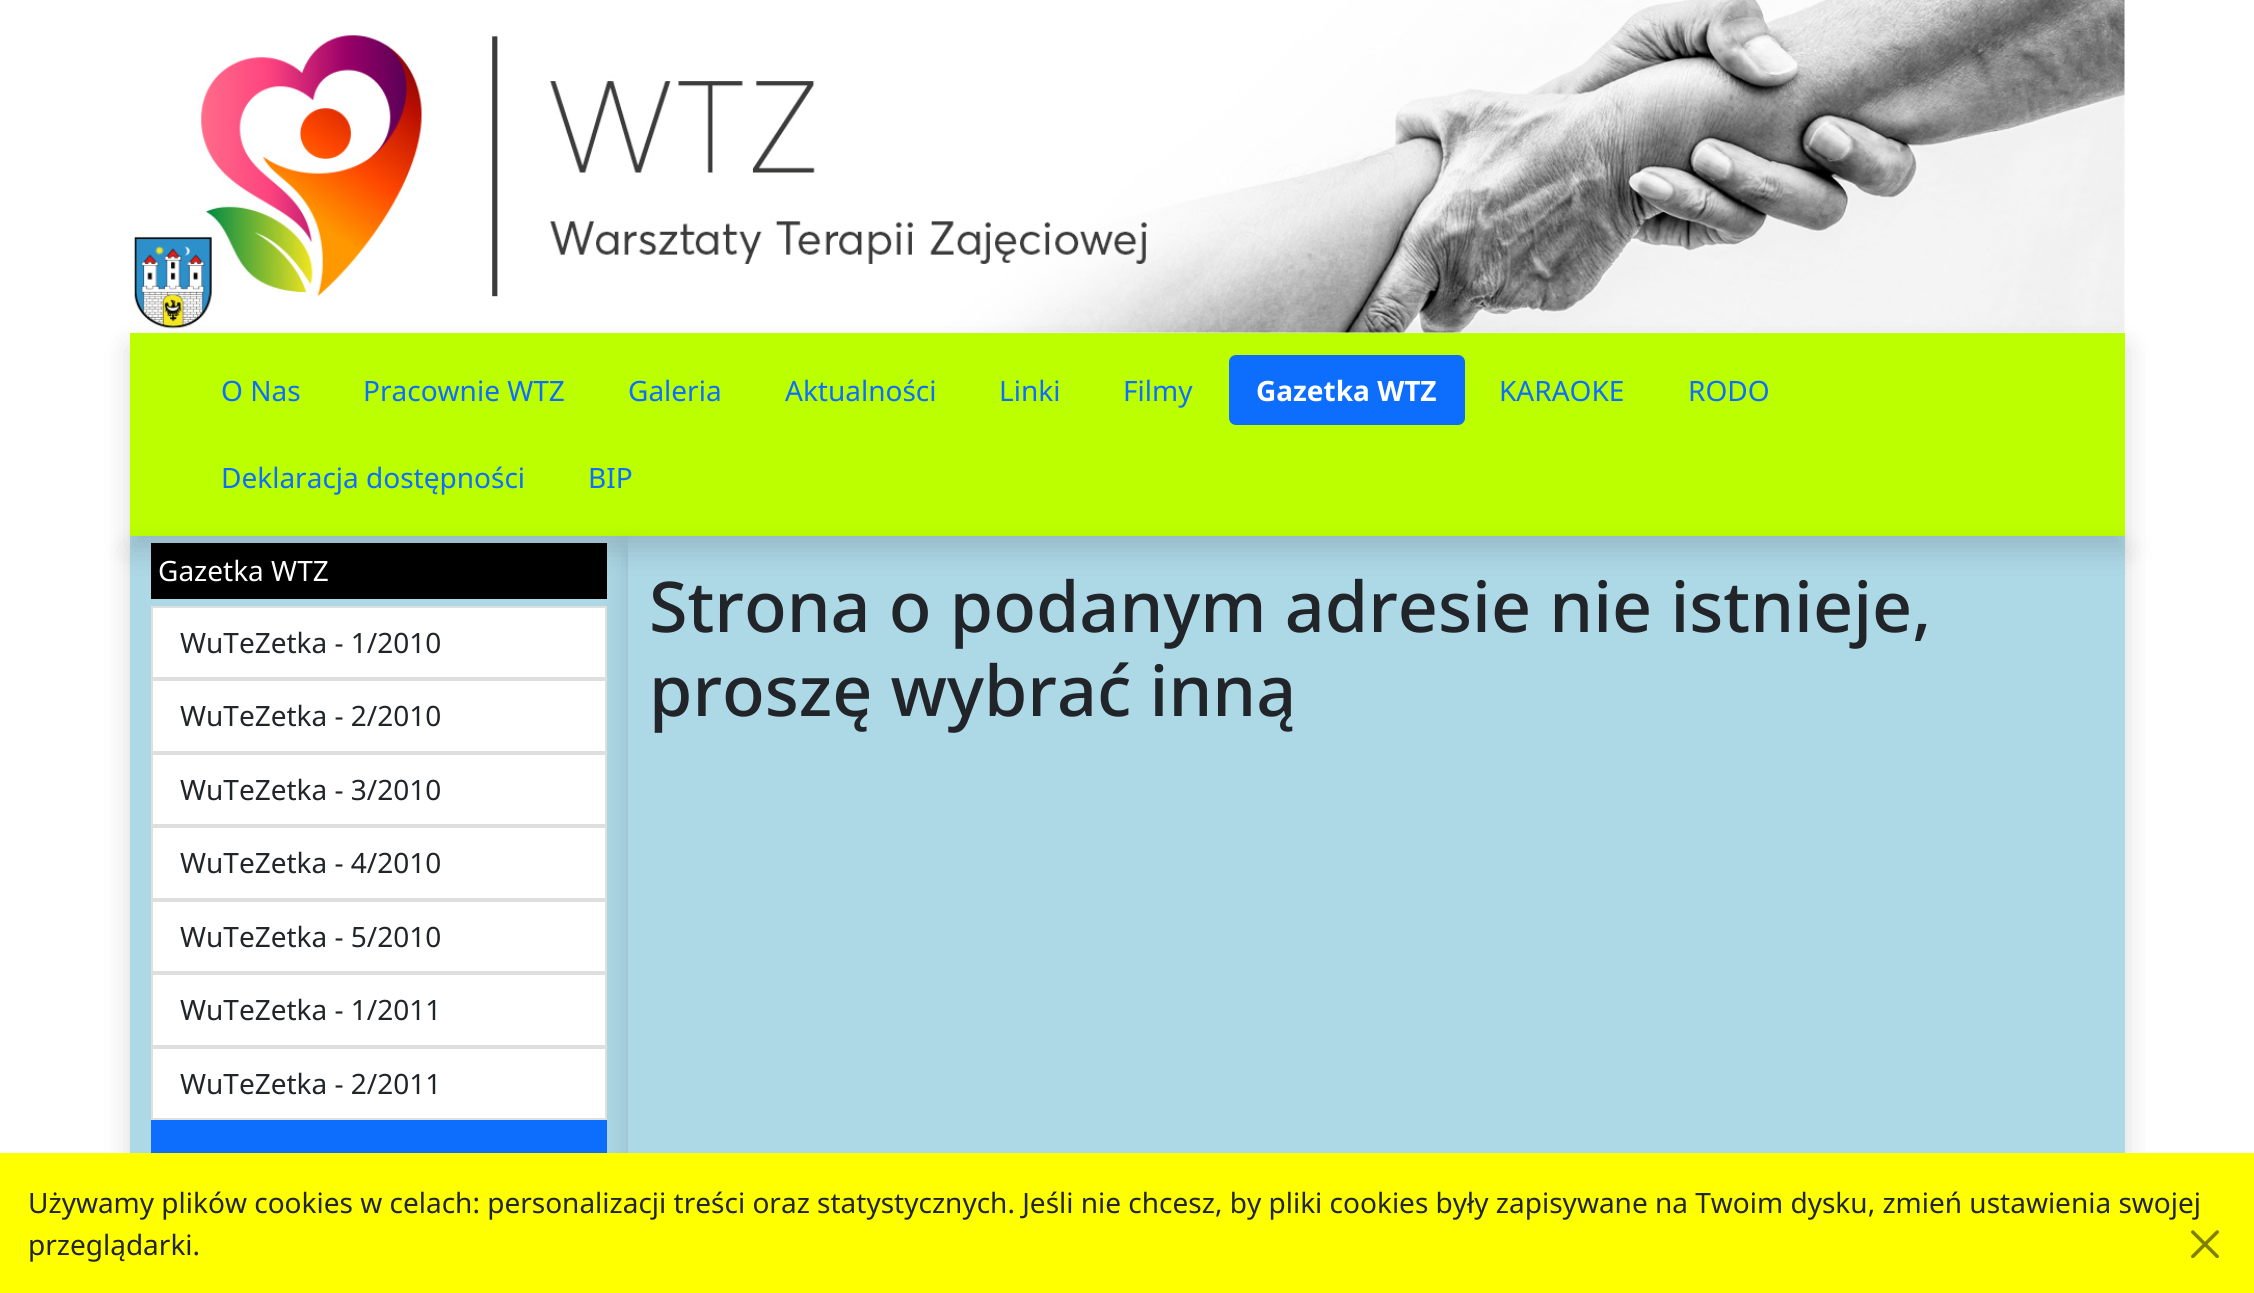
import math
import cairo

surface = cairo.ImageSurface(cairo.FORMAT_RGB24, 2254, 1293)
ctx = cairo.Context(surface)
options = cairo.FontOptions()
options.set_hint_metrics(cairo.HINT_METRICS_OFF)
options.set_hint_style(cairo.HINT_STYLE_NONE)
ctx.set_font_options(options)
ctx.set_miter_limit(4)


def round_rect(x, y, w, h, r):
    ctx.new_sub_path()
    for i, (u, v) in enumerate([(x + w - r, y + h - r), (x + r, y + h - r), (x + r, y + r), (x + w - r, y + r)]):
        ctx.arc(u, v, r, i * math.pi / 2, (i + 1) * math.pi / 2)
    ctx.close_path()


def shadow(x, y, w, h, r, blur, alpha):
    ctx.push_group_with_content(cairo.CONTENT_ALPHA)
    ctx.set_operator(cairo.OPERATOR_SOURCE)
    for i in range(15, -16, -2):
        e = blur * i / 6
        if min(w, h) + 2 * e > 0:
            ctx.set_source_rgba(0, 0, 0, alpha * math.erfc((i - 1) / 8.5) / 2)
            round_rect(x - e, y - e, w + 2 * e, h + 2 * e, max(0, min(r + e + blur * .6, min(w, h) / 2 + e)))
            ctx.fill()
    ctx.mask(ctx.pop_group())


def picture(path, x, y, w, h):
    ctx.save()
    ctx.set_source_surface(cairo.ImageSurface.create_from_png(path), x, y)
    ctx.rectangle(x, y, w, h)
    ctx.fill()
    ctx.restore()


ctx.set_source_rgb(1, 1, 1)
ctx.paint()
picture("img1.png", 134, 0, 1991, 333)
ctx.set_source_rgb(0.733, 1, 0)
ctx.rectangle(130, 333, 1995, 203)
ctx.fill()
ctx.set_source_rgb(0, 0, 0)
shadow(130, 550, 498, 658, 0, 14, 0.15)
ctx.set_source_rgb(0.678, 0.847, 0.902)
ctx.rectangle(130, 536, 498, 617)
ctx.fill()
ctx.set_source_rgb(0, 0, 0)
ctx.rectangle(151, 543, 456, 56)
ctx.fill()
ctx.set_source_rgb(0, 0, 0)
shadow(628, 550, 1497, 658, 0, 14, 0.15)
ctx.set_source_rgb(0.678, 0.847, 0.902)
ctx.rectangle(628, 536, 1497, 617)
ctx.fill()
ctx.save()
ctx.set_fill_rule(cairo.FILL_RULE_EVEN_ODD)
ctx.new_path()
ctx.move_to(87, 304)
ctx.line_to(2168, 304)
ctx.line_to(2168, 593)
ctx.line_to(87, 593)
ctx.close_path()
ctx.move_to(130, 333)
ctx.line_to(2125, 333)
ctx.line_to(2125, 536)
ctx.line_to(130, 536)
ctx.close_path()
ctx.clip()
ctx.set_source_rgb(0, 0, 0)
shadow(130, 347, 1995, 203, 0, 14, 0.15)
ctx.restore()
ctx.select_font_face("Noto Sans")
ctx.set_font_size(28)
ctx.set_source_rgb(0.051, 0.431, 0.992)
ctx.move_to(221, 401)
ctx.show_text("O Nas")
ctx.move_to(363, 401)
ctx.show_text("Pracownie WTZ")
ctx.move_to(628, 401)
ctx.show_text("Galeria")
ctx.move_to(785, 401)
ctx.show_text("Aktualności")
ctx.move_to(999, 401)
ctx.show_text("Linki")
ctx.move_to(1123, 401)
ctx.show_text("Filmy")
round_rect(1229, 355, 236, 70, 7)
ctx.fill()
ctx.select_font_face("Noto Sans", cairo.FONT_SLANT_NORMAL, cairo.FONT_WEIGHT_BOLD)
ctx.set_source_rgb(1, 1, 1)
ctx.move_to(1256, 401)
ctx.show_text("Gazetka WTZ")
ctx.select_font_face("Noto Sans")
ctx.set_source_rgb(0.051, 0.431, 0.992)
ctx.move_to(1499, 401)
ctx.show_text("KARAOKE")
ctx.move_to(1688, 401)
ctx.show_text("RODO")
ctx.move_to(221, 488)
ctx.show_text("Deklaracja dostępności")
ctx.move_to(588, 488)
ctx.show_text("BIP")
ctx.set_source_rgb(1, 1, 1)
ctx.move_to(158, 581)
ctx.show_text("Gazetka WTZ")
ctx.rectangle(152, 607, 454, 71)
ctx.fill_preserve()
ctx.set_source_rgb(0.875, 0.875, 0.875)
ctx.stroke()
ctx.set_source_rgb(0.129, 0.145, 0.161)
ctx.move_to(180, 653)
ctx.show_text("WuTeZetka - 1/2010")
ctx.set_source_rgb(1, 1, 1)
ctx.rectangle(152, 680, 454, 72)
ctx.fill_preserve()
ctx.set_source_rgb(0.875, 0.875, 0.875)
ctx.stroke()
ctx.set_source_rgb(0.129, 0.145, 0.161)
ctx.move_to(180, 726)
ctx.show_text("WuTeZetka - 2/2010")
ctx.set_source_rgb(1, 1, 1)
ctx.rectangle(152, 754, 454, 71)
ctx.fill_preserve()
ctx.set_source_rgb(0.875, 0.875, 0.875)
ctx.stroke()
ctx.set_source_rgb(0.129, 0.145, 0.161)
ctx.move_to(180, 800)
ctx.show_text("WuTeZetka - 3/2010")
ctx.set_source_rgb(1, 1, 1)
ctx.rectangle(152, 827, 454, 72)
ctx.fill_preserve()
ctx.set_source_rgb(0.875, 0.875, 0.875)
ctx.stroke()
ctx.set_source_rgb(0.129, 0.145, 0.161)
ctx.move_to(180, 873)
ctx.show_text("WuTeZetka - 4/2010")
ctx.set_source_rgb(1, 1, 1)
ctx.rectangle(152, 901, 454, 71)
ctx.fill_preserve()
ctx.set_source_rgb(0.875, 0.875, 0.875)
ctx.stroke()
ctx.set_source_rgb(0.129, 0.145, 0.161)
ctx.move_to(180, 947)
ctx.show_text("WuTeZetka - 5/2010")
ctx.set_source_rgb(1, 1, 1)
ctx.rectangle(152, 974, 454, 72)
ctx.fill_preserve()
ctx.set_source_rgb(0.875, 0.875, 0.875)
ctx.stroke()
ctx.set_source_rgb(0.129, 0.145, 0.161)
ctx.move_to(180, 1020)
ctx.show_text("WuTeZetka - 1/2011")
ctx.set_source_rgb(1, 1, 1)
ctx.rectangle(152, 1048, 454, 71)
ctx.fill_preserve()
ctx.set_source_rgb(0.875, 0.875, 0.875)
ctx.stroke()
ctx.set_source_rgb(0.129, 0.145, 0.161)
ctx.move_to(180, 1094)
ctx.show_text("WuTeZetka - 2/2011")
ctx.set_source_rgb(0.051, 0.431, 0.992)
ctx.rectangle(151, 1120, 456, 33)
ctx.fill()
ctx.select_font_face("Noto Sans Medium")
ctx.set_font_size(70)
ctx.set_source_rgb(0.129, 0.145, 0.161)
ctx.move_to(649, 632)
ctx.show_text("Strona o podanym adresie nie istnieje,")
ctx.move_to(649, 716)
ctx.show_text("proszę wybrać inną")
ctx.set_source_rgb(1, 1, 0)
ctx.rectangle(0, 1153, 2254, 140)
ctx.fill()
ctx.select_font_face("Noto Sans")
ctx.set_font_size(28)
ctx.set_source_rgb(0.129, 0.145, 0.161)
ctx.move_to(28, 1213)
ctx.show_text("Używamy plików cookies w celach: personalizacji treści oraz statystycznych. Jeśli nie chcesz, by pliki cookies były zapisywane na Twoim dysku, zmień ustawienia swojej")
ctx.move_to(28, 1255)
ctx.show_text("przeglądarki.")
picture("img2.png", 2191, 1230, 28, 28)
surface.write_to_png("page.png")
